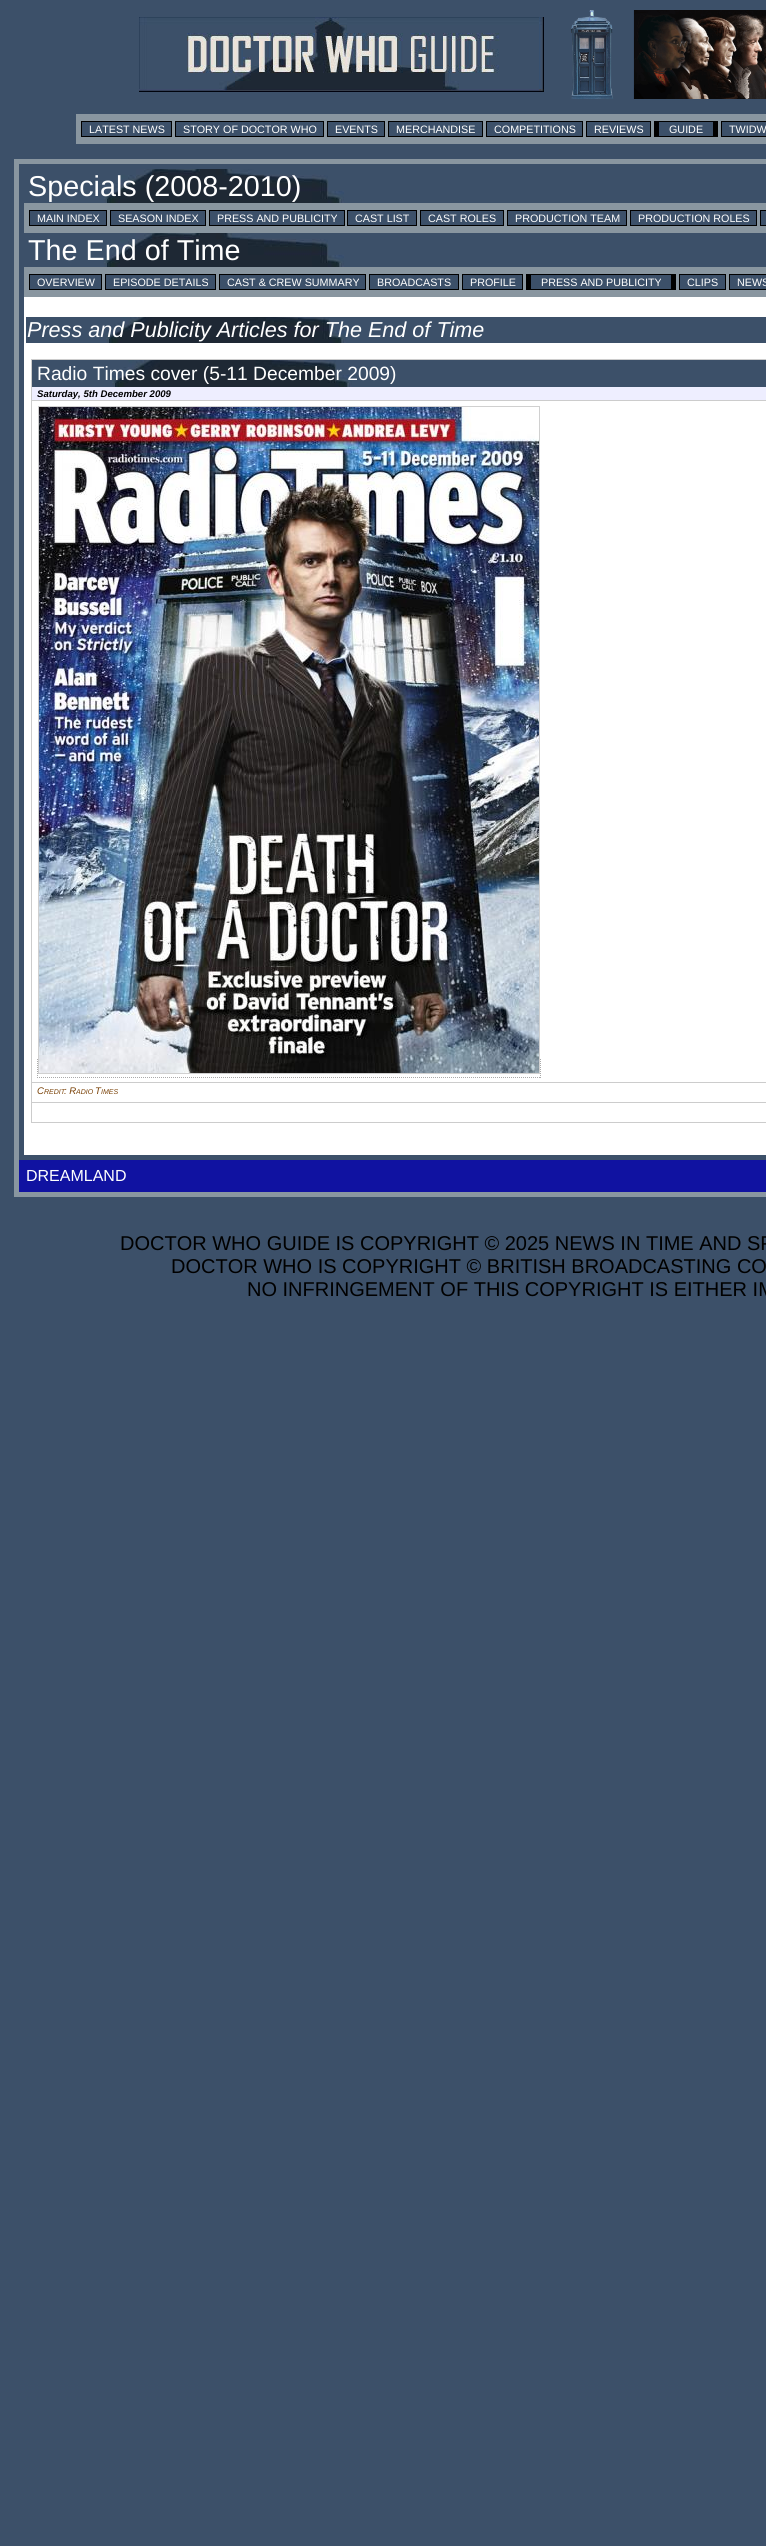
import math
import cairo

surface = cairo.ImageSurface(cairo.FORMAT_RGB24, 766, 2546)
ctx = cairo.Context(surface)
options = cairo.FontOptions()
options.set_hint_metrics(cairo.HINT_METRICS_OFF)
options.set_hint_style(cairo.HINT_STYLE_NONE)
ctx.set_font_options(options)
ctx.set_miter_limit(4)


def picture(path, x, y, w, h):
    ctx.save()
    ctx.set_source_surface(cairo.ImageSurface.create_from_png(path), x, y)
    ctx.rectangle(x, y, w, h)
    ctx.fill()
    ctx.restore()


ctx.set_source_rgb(0.235, 0.314, 0.412)
ctx.paint()
picture("img1.png", 139, 17, 405, 75)
picture("img2.png", 571, 10, 195, 89)
ctx.set_source_rgb(0.537, 0.588, 0.627)
ctx.rectangle(76, 114, 690, 30)
ctx.fill()
ctx.set_source_rgb(0.235, 0.314, 0.412)
ctx.rectangle(81.5, 121.5, 90, 15)
ctx.fill_preserve()
ctx.set_source_rgb(0, 0, 0)
ctx.set_line_width(1)
ctx.stroke()
ctx.select_font_face("Liberation Sans")
ctx.set_font_size(10.75)
ctx.set_source_rgb(1, 1, 1)
ctx.move_to(89, 133)
ctx.show_text("LATEST NEWS")
ctx.set_source_rgb(0.235, 0.314, 0.412)
ctx.rectangle(175.5, 121.5, 148, 15)
ctx.fill_preserve()
ctx.set_source_rgb(0, 0, 0)
ctx.stroke()
ctx.set_source_rgb(1, 1, 1)
ctx.move_to(183, 133)
ctx.show_text("STORY OF DOCTOR WHO")
ctx.set_source_rgb(0.235, 0.314, 0.412)
ctx.rectangle(327.5, 121.5, 57, 15)
ctx.fill_preserve()
ctx.set_source_rgb(0, 0, 0)
ctx.stroke()
ctx.set_source_rgb(1, 1, 1)
ctx.move_to(335, 133)
ctx.show_text("EVENTS")
ctx.set_source_rgb(0.235, 0.314, 0.412)
ctx.rectangle(388.5, 121.5, 94, 15)
ctx.fill_preserve()
ctx.set_source_rgb(0, 0, 0)
ctx.stroke()
ctx.set_source_rgb(1, 1, 1)
ctx.move_to(396, 133)
ctx.show_text("MERCHANDISE")
ctx.set_source_rgb(0.235, 0.314, 0.412)
ctx.rectangle(486.5, 121.5, 96, 15)
ctx.fill_preserve()
ctx.set_source_rgb(0, 0, 0)
ctx.stroke()
ctx.set_source_rgb(1, 1, 1)
ctx.move_to(494, 133)
ctx.show_text("COMPETITIONS")
ctx.set_source_rgb(0.235, 0.314, 0.412)
ctx.rectangle(586.5, 121.5, 64, 15)
ctx.fill_preserve()
ctx.set_source_rgb(0, 0, 0)
ctx.stroke()
ctx.set_source_rgb(1, 1, 1)
ctx.move_to(594, 133)
ctx.show_text("REVIEWS")
ctx.set_source_rgb(0.235, 0.314, 0.412)
ctx.rectangle(659, 122, 54, 14)
ctx.fill()
ctx.set_source_rgb(1, 1, 1)
ctx.move_to(669, 133)
ctx.show_text("GUIDE")
ctx.set_source_rgb(0, 0, 0)
ctx.rectangle(654, 121, 64, 1)
ctx.fill()
ctx.rectangle(713, 121, 5, 16)
ctx.fill()
ctx.rectangle(654, 136, 64, 1)
ctx.fill()
ctx.rectangle(654, 121, 5, 16)
ctx.fill()
ctx.set_source_rgb(0.235, 0.314, 0.412)
ctx.rectangle(721.5, 121.5, 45, 15)
ctx.fill_preserve()
ctx.set_source_rgb(0, 0, 0)
ctx.stroke()
ctx.set_source_rgb(1, 1, 1)
ctx.move_to(729, 133)
ctx.show_text("TWIDW")
ctx.set_source_rgb(0.537, 0.588, 0.627)
ctx.rectangle(14, 159, 752, 1038)
ctx.fill()
ctx.set_source_rgb(1, 1, 1)
ctx.rectangle(24, 297, 742, 858)
ctx.fill()
ctx.rectangle(21.5, 166.5, 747, 991)
ctx.set_source_rgb(0.235, 0.314, 0.412)
ctx.set_line_width(5)
ctx.stroke()
picture("img3.png", 24, 169, 742, 34)
ctx.set_font_size(28.75)
ctx.set_source_rgb(1, 1, 1)
ctx.move_to(28, 196)
ctx.show_text("Specials (2008-2010)")
ctx.set_source_rgb(0.235, 0.314, 0.412)
ctx.rectangle(29.5, 210.5, 77, 15)
ctx.fill_preserve()
ctx.set_source_rgb(0, 0, 0)
ctx.set_line_width(1)
ctx.stroke()
ctx.set_font_size(10.75)
ctx.set_source_rgb(1, 1, 1)
ctx.move_to(37, 222)
ctx.show_text("MAIN INDEX")
ctx.set_source_rgb(0.235, 0.314, 0.412)
ctx.rectangle(110.5, 210.5, 95, 15)
ctx.fill_preserve()
ctx.set_source_rgb(0, 0, 0)
ctx.stroke()
ctx.set_source_rgb(1, 1, 1)
ctx.move_to(118, 222)
ctx.show_text("SEASON INDEX")
ctx.set_source_rgb(0.235, 0.314, 0.412)
ctx.rectangle(209.5, 210.5, 135, 15)
ctx.fill_preserve()
ctx.set_source_rgb(0, 0, 0)
ctx.stroke()
ctx.set_source_rgb(1, 1, 1)
ctx.move_to(217, 222)
ctx.show_text("PRESS AND PUBLICITY")
ctx.set_source_rgb(0.235, 0.314, 0.412)
ctx.rectangle(347.5, 210.5, 69, 15)
ctx.fill_preserve()
ctx.set_source_rgb(0, 0, 0)
ctx.stroke()
ctx.set_source_rgb(1, 1, 1)
ctx.move_to(355, 222)
ctx.show_text("CAST LIST")
ctx.set_source_rgb(0.235, 0.314, 0.412)
ctx.rectangle(420.5, 210.5, 83, 15)
ctx.fill_preserve()
ctx.set_source_rgb(0, 0, 0)
ctx.stroke()
ctx.set_source_rgb(1, 1, 1)
ctx.move_to(428, 222)
ctx.show_text("CAST ROLES")
ctx.set_source_rgb(0.235, 0.314, 0.412)
ctx.rectangle(507.5, 210.5, 119, 15)
ctx.fill_preserve()
ctx.set_source_rgb(0, 0, 0)
ctx.stroke()
ctx.set_source_rgb(1, 1, 1)
ctx.move_to(515, 222)
ctx.show_text("PRODUCTION TEAM")
ctx.set_source_rgb(0.235, 0.314, 0.412)
ctx.rectangle(630.5, 210.5, 126, 15)
ctx.fill_preserve()
ctx.set_source_rgb(0, 0, 0)
ctx.stroke()
ctx.set_source_rgb(1, 1, 1)
ctx.move_to(638, 222)
ctx.show_text("PRODUCTION ROLES")
ctx.set_source_rgb(0.235, 0.314, 0.412)
ctx.rectangle(760.5, 210.5, 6, 15)
ctx.fill_preserve()
ctx.set_source_rgb(0, 0, 0)
ctx.stroke()
picture("img3.png", 24, 233, 742, 34)
ctx.set_font_size(28.75)
ctx.set_source_rgb(1, 1, 1)
ctx.move_to(28, 260)
ctx.show_text("The End of Time")
ctx.set_source_rgb(0.235, 0.314, 0.412)
ctx.rectangle(29.5, 274.5, 72, 15)
ctx.fill_preserve()
ctx.set_source_rgb(0, 0, 0)
ctx.stroke()
ctx.set_font_size(10.75)
ctx.set_source_rgb(1, 1, 1)
ctx.move_to(37, 286)
ctx.show_text("OVERVIEW")
ctx.set_source_rgb(0.235, 0.314, 0.412)
ctx.rectangle(105.5, 274.5, 110, 15)
ctx.fill_preserve()
ctx.set_source_rgb(0, 0, 0)
ctx.stroke()
ctx.set_source_rgb(1, 1, 1)
ctx.move_to(113, 286)
ctx.show_text("EPISODE DETAILS")
ctx.set_source_rgb(0.235, 0.314, 0.412)
ctx.rectangle(219.5, 274.5, 146, 15)
ctx.fill_preserve()
ctx.set_source_rgb(0, 0, 0)
ctx.stroke()
ctx.set_source_rgb(1, 1, 1)
ctx.move_to(227, 286)
ctx.show_text("CAST & CREW SUMMARY")
ctx.set_source_rgb(0.235, 0.314, 0.412)
ctx.rectangle(369.5, 274.5, 89, 15)
ctx.fill_preserve()
ctx.set_source_rgb(0, 0, 0)
ctx.stroke()
ctx.set_source_rgb(1, 1, 1)
ctx.move_to(377, 286)
ctx.show_text("BROADCASTS")
ctx.set_source_rgb(0.235, 0.314, 0.412)
ctx.rectangle(462.5, 274.5, 60, 15)
ctx.fill_preserve()
ctx.set_source_rgb(0, 0, 0)
ctx.stroke()
ctx.set_source_rgb(1, 1, 1)
ctx.move_to(470, 286)
ctx.show_text("PROFILE")
ctx.set_source_rgb(0.235, 0.314, 0.412)
ctx.rectangle(531, 275, 140, 14)
ctx.fill()
ctx.set_source_rgb(1, 1, 1)
ctx.move_to(541, 286)
ctx.show_text("PRESS AND PUBLICITY")
ctx.set_source_rgb(0, 0, 0)
ctx.rectangle(526, 274, 150, 1)
ctx.fill()
ctx.rectangle(671, 274, 5, 16)
ctx.fill()
ctx.rectangle(526, 289, 150, 1)
ctx.fill()
ctx.rectangle(526, 274, 5, 16)
ctx.fill()
ctx.set_source_rgb(0.235, 0.314, 0.412)
ctx.rectangle(679.5, 274.5, 46, 15)
ctx.fill_preserve()
ctx.set_source_rgb(0, 0, 0)
ctx.stroke()
ctx.set_source_rgb(1, 1, 1)
ctx.move_to(687, 286)
ctx.show_text("CLIPS")
ctx.set_source_rgb(0.235, 0.314, 0.412)
ctx.rectangle(729.5, 274.5, 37, 15)
ctx.fill_preserve()
ctx.set_source_rgb(0, 0, 0)
ctx.stroke()
ctx.set_source_rgb(1, 1, 1)
ctx.move_to(737, 286)
ctx.show_text("NEWS")
picture("img4.png", 26, 317, 740, 26)
ctx.select_font_face("Liberation Sans", cairo.FONT_SLANT_ITALIC)
ctx.set_font_size(21.6)
ctx.move_to(27, 337)
ctx.show_text("Press and Publicity Articles for The End of Time")
ctx.rectangle(31.5, 359.5, 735, 763)
ctx.set_source_rgb(0.8, 0.8, 0.8)
ctx.stroke()
ctx.set_source_rgb(0.235, 0.314, 0.412)
ctx.rectangle(32, 360, 734, 27)
ctx.fill()
picture("img5.png", 112, 360, 240, 27)
ctx.select_font_face("Liberation Sans")
ctx.set_font_size(19.25)
ctx.set_source_rgb(1, 1, 1)
ctx.move_to(37, 380)
ctx.show_text("Radio Times cover (5-11 December 2009)")
ctx.set_source_rgb(0.933, 0.933, 1)
ctx.rectangle(32, 387, 734, 13)
ctx.fill()
ctx.set_source_rgb(0.8, 0.8, 0.8)
ctx.rectangle(32, 400, 734, 1)
ctx.fill()
ctx.select_font_face("Liberation Sans", cairo.FONT_SLANT_ITALIC, cairo.FONT_WEIGHT_BOLD)
ctx.set_font_size(9.6)
ctx.set_source_rgb(0, 0, 0)
ctx.move_to(37, 397)
ctx.show_text("Saturday, 5th December 2009")
ctx.rectangle(38.5, 406.5, 501, 667)
ctx.set_source_rgb(0.816, 0.816, 0.816)
ctx.stroke()
ctx.new_path()
ctx.move_to(37, 1077.5)
ctx.line_to(541, 1077.5)
ctx.set_source_rgb(0.667, 0.667, 0.667)
ctx.set_dash([1, 1])
ctx.stroke()
ctx.new_path()
ctx.move_to(37.5, 1059)
ctx.line_to(37.5, 1078)
ctx.stroke()
picture("img6.png", 39, 407, 500, 666)
ctx.new_path()
ctx.move_to(540.5, 1059)
ctx.line_to(540.5, 1078)
ctx.stroke()
ctx.set_source_rgb(0.8, 0.8, 0.8)
ctx.rectangle(32, 1082, 734, 1)
ctx.fill()
ctx.select_font_face("Liberation Sans", cairo.FONT_SLANT_ITALIC)
ctx.set_source_rgb(0.471, 0.247, 0.016)
ctx.move_to(37, 1094)
ctx.show_text("C")
ctx.set_font_size(7)
ctx.move_to(44, 1094)
ctx.show_text("REDIT")
ctx.set_font_size(9.6)
ctx.move_to(64, 1094)
ctx.show_text(": R")
ctx.set_font_size(7)
ctx.move_to(76, 1094)
ctx.show_text("ADIO")
ctx.set_font_size(9.6)
ctx.move_to(95, 1094)
ctx.show_text("T")
ctx.set_font_size(7)
ctx.move_to(101, 1094)
ctx.show_text("IMES")
ctx.set_source_rgb(0.8, 0.8, 0.8)
ctx.rectangle(32, 1102, 734, 1)
ctx.fill()
ctx.set_source_rgb(0.063, 0.071, 0.631)
ctx.rectangle(19, 1160, 747, 32)
ctx.fill()
ctx.select_font_face("Liberation Sans")
ctx.set_font_size(16)
ctx.set_source_rgb(1, 1, 1)
ctx.move_to(26, 1181)
ctx.show_text("DREAMLAND")
ctx.set_font_size(20)
ctx.set_source_rgb(0, 0, 0)
ctx.move_to(120, 1250)
ctx.show_text("DOCTOR WHO GUIDE IS COPYRIGHT © 2025 NEWS IN TIME AND SP")
ctx.move_to(171, 1273)
ctx.show_text("DOCTOR WHO IS COPYRIGHT © BRITISH BROADCASTING CO")
ctx.move_to(247, 1296)
ctx.show_text("NO INFRINGEMENT OF THIS COPYRIGHT IS EITHER IM")
surface.write_to_png("page.png")
